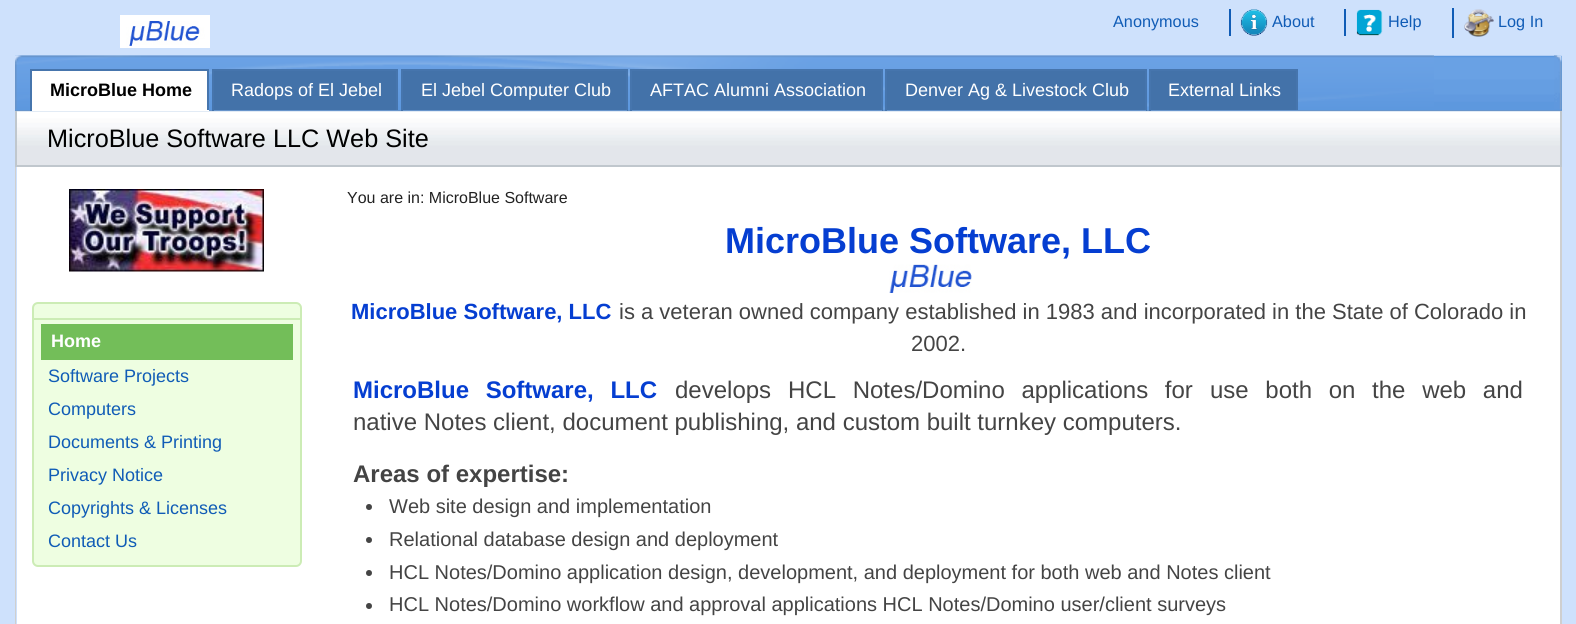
import math
import cairo

surface = cairo.ImageSurface(cairo.FORMAT_RGB24, 1576, 624)
ctx = cairo.Context(surface)
options = cairo.FontOptions()
options.set_hint_metrics(cairo.HINT_METRICS_OFF)
options.set_hint_style(cairo.HINT_STYLE_NONE)
ctx.set_font_options(options)
ctx.set_miter_limit(4)


def spaced_text(x, y, s, letter, word):
    ctx.move_to(x, y)
    for ch in s:
        ctx.show_text(ch)
        ctx.rel_move_to(letter + word * (ch == ' '), 0)


def round_rect(x, y, w, h, r):
    ctx.new_sub_path()
    for i, (u, v) in enumerate([(x + w - r, y + h - r), (x + r, y + h - r), (x + r, y + r), (x + w - r, y + r)]):
        ctx.arc(u, v, r, i * math.pi / 2, (i + 1) * math.pi / 2)
    ctx.close_path()


def picture(path, x, y, w, h):
    ctx.save()
    ctx.set_source_surface(cairo.ImageSurface.create_from_png(path), x, y)
    ctx.rectangle(x, y, w, h)
    ctx.fill()
    ctx.restore()


ctx.set_source_rgb(0.808, 0.882, 0.988)
ctx.paint()
picture("img1.png", 120, 15, 90, 33)
ctx.select_font_face("Liberation Sans")
ctx.set_font_size(16.25)
ctx.set_source_rgb(0.063, 0.361, 0.714)
ctx.move_to(1113, 27)
ctx.show_text("Anonymous")
picture("img2.png", 1240, 9, 28, 27)
ctx.move_to(1272, 27)
ctx.show_text("About")
ctx.rectangle(1229, 9, 2, 27)
ctx.fill()
picture("img3.png", 1356, 9, 27, 27)
ctx.move_to(1388, 27)
ctx.show_text("Help")
ctx.rectangle(1344, 9, 2, 27)
ctx.fill()
picture("img4.png", 1464, 9, 30, 28)
ctx.move_to(1498, 27)
ctx.show_text("Log In")
ctx.rectangle(1452, 8, 2, 30)
ctx.fill()
ctx.set_source_rgb(0.271, 0.525, 0.827)
ctx.rectangle(1561, 56, 1, 54)
ctx.fill()
picture("img5.png", 15, 55, 1547, 55)
ctx.set_source_rgb(0.404, 0.58, 0.796)
ctx.rectangle(15, 110, 1547, 2)
ctx.fill()
picture("img6.png", 1554, 55, 8, 55)
picture("img7.png", 15, 55, 1419, 55)
ctx.set_source_rgb(1, 1, 1)
ctx.rectangle(32, 71, 175, 39)
ctx.fill()
ctx.set_source_rgb(0.275, 0.459, 0.678)
ctx.rectangle(30, 69, 179, 2)
ctx.fill()
ctx.rectangle(207, 69, 2, 42)
ctx.fill()
ctx.set_source_rgb(1, 1, 1)
ctx.rectangle(30, 110, 179, 1)
ctx.fill()
ctx.set_source_rgb(0.275, 0.459, 0.678)
ctx.rectangle(30, 69, 2, 42)
ctx.fill()
ctx.select_font_face("Liberation Sans", cairo.FONT_SLANT_NORMAL, cairo.FONT_WEIGHT_BOLD)
ctx.set_font_size(18)
ctx.set_source_rgb(0, 0, 0)
ctx.move_to(50, 96)
ctx.show_text("MicroBlue Home")
ctx.set_source_rgb(0.263, 0.447, 0.663)
ctx.rectangle(214, 71, 182, 39)
ctx.fill()
ctx.set_source_rgb(0.275, 0.459, 0.678)
ctx.rectangle(212, 69, 186, 2)
ctx.fill()
ctx.rectangle(396, 69, 2, 42)
ctx.fill()
ctx.set_source_rgb(0.404, 0.58, 0.796)
ctx.rectangle(396, 110, 2, 1)
ctx.fill()
ctx.set_source_rgb(0.275, 0.459, 0.678)
ctx.rectangle(212, 69, 2, 42)
ctx.fill()
ctx.select_font_face("Liberation Sans")
ctx.set_source_rgb(1, 1, 1)
ctx.move_to(231, 96)
ctx.show_text("Radops of El Jebel")
ctx.set_source_rgb(0.263, 0.447, 0.663)
ctx.rectangle(403, 71, 223, 39)
ctx.fill()
ctx.set_source_rgb(0.275, 0.459, 0.678)
ctx.rectangle(401, 69, 226, 2)
ctx.fill()
ctx.rectangle(626, 69, 2, 42)
ctx.fill()
ctx.set_source_rgb(0.404, 0.58, 0.796)
ctx.rectangle(626, 110, 1, 1)
ctx.fill()
ctx.set_source_rgb(0.275, 0.459, 0.678)
ctx.rectangle(401, 69, 2, 42)
ctx.fill()
ctx.set_source_rgb(1, 1, 1)
ctx.move_to(421, 96)
ctx.show_text("El Jebel Computer Club")
ctx.set_source_rgb(0.263, 0.447, 0.663)
ctx.rectangle(632, 71, 249, 39)
ctx.fill()
ctx.set_source_rgb(0.275, 0.459, 0.678)
ctx.rectangle(630, 69, 252, 2)
ctx.fill()
ctx.rectangle(881, 69, 2, 42)
ctx.fill()
ctx.set_source_rgb(0.404, 0.58, 0.796)
ctx.rectangle(881, 110, 1, 1)
ctx.fill()
ctx.set_source_rgb(0.275, 0.459, 0.678)
ctx.rectangle(630, 69, 2, 42)
ctx.fill()
ctx.set_source_rgb(1, 1, 1)
ctx.move_to(650, 96)
ctx.show_text("AFTAC Alumni Association")
ctx.set_source_rgb(0.263, 0.447, 0.663)
ctx.rectangle(887, 71, 258, 39)
ctx.fill()
ctx.set_source_rgb(0.275, 0.459, 0.678)
ctx.rectangle(885, 69, 261, 2)
ctx.fill()
ctx.rectangle(1145, 69, 2, 42)
ctx.fill()
ctx.set_source_rgb(0.404, 0.58, 0.796)
ctx.rectangle(1145, 110, 1, 1)
ctx.fill()
ctx.set_source_rgb(0.275, 0.459, 0.678)
ctx.rectangle(885, 69, 2, 42)
ctx.fill()
ctx.set_source_rgb(1, 1, 1)
ctx.move_to(905, 96)
ctx.show_text("Denver Ag & Livestock Club")
ctx.set_source_rgb(0.263, 0.447, 0.663)
ctx.rectangle(1151, 71, 145, 39)
ctx.fill()
ctx.set_source_rgb(0.275, 0.459, 0.678)
ctx.rectangle(1149, 69, 149, 2)
ctx.fill()
ctx.rectangle(1296, 69, 2, 42)
ctx.fill()
ctx.set_source_rgb(0.404, 0.58, 0.796)
ctx.rectangle(1296, 110, 2, 1)
ctx.fill()
ctx.set_source_rgb(0.275, 0.459, 0.678)
ctx.rectangle(1149, 69, 2, 42)
ctx.fill()
ctx.set_source_rgb(1, 1, 1)
ctx.move_to(1168, 96)
ctx.show_text("External Links")
picture("img8.png", 17, 111, 1543, 54)
ctx.rectangle(17, 167, 1543, 457)
ctx.fill()
ctx.set_source_rgb(0.812, 0.812, 0.812)
ctx.set_fill_rule(cairo.FILL_RULE_EVEN_ODD)
ctx.new_path()
ctx.move_to(15, 166)
ctx.line_to(1562, 166)
ctx.line_to(1562, 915)
ctx.curve_to(1562, 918, 1559, 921, 1556, 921)
ctx.line_to(21, 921)
ctx.curve_to(18, 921, 15, 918, 15, 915)
ctx.close_path()
ctx.move_to(16, 166)
ctx.line_to(1560, 166)
ctx.line_to(1560, 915)
ctx.curve_to(1560, 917, 1558, 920, 1556, 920)
ctx.line_to(21, 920)
ctx.curve_to(19, 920, 16, 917, 16, 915)
ctx.close_path()
ctx.fill()
ctx.set_source_rgb(0.753, 0.78, 0.804)
ctx.rectangle(1560, 111, 2, 56)
ctx.fill()
ctx.rectangle(15, 165, 1547, 2)
ctx.fill()
ctx.rectangle(15, 111, 2, 56)
ctx.fill()
ctx.set_font_size(25.25)
ctx.set_source_rgb(0, 0, 0)
ctx.move_to(47, 147)
ctx.show_text("MicroBlue Software LLC Web Site")
picture("img9.png", 69, 189, 195, 83)
ctx.set_source_rgb(0.933, 0.996, 0.882)
round_rect(33, 303, 268, 263, 5)
ctx.fill_preserve()
ctx.set_source_rgb(0.8, 0.922, 0.71)
ctx.stroke()
ctx.rectangle(33, 318, 267, 2)
ctx.fill()
ctx.set_source_rgb(0.451, 0.745, 0.349)
ctx.rectangle(41, 324, 252, 36)
ctx.fill()
ctx.select_font_face("Liberation Sans", cairo.FONT_SLANT_NORMAL, cairo.FONT_WEIGHT_BOLD)
ctx.set_font_size(18)
ctx.set_source_rgb(1, 1, 1)
ctx.move_to(51, 347)
ctx.show_text("Home")
ctx.select_font_face("Liberation Sans")
ctx.set_source_rgb(0.063, 0.361, 0.714)
ctx.move_to(48, 382)
ctx.show_text("Software Projects")
ctx.move_to(48, 415)
ctx.show_text("Computers")
ctx.move_to(48, 448)
ctx.show_text("Documents & Printing")
ctx.move_to(48, 481)
ctx.show_text("Privacy Notice")
ctx.move_to(48, 514)
ctx.show_text("Copyrights & Licenses")
ctx.move_to(48, 547)
ctx.show_text("Contact Us")
ctx.set_font_size(16)
ctx.set_source_rgb(0.133, 0.133, 0.133)
ctx.move_to(347, 203)
ctx.show_text("You are in: MicroBlue Software")
ctx.select_font_face("Liberation Sans", cairo.FONT_SLANT_NORMAL, cairo.FONT_WEIGHT_BOLD)
ctx.set_font_size(36)
ctx.set_source_rgb(0.02, 0.243, 0.82)
ctx.move_to(725, 253)
ctx.show_text("MicroBlue Software, LLC")
picture("img10.png", 889, 264, 83, 29)
ctx.set_font_size(22)
ctx.move_to(351, 319)
ctx.show_text("MicroBlue Software, LLC")
ctx.select_font_face("Liberation Sans")
ctx.set_source_rgb(0.267, 0.267, 0.267)
ctx.move_to(619, 319)
ctx.show_text("is a veteran owned company established in 1983 and incorporated in the State of Colorado in")
ctx.move_to(911, 351)
ctx.show_text("2002.")
ctx.select_font_face("Liberation Sans", cairo.FONT_SLANT_NORMAL, cairo.FONT_WEIGHT_BOLD)
ctx.set_font_size(24)
ctx.set_source_rgb(0.02, 0.243, 0.82)
spaced_text(353, 398, "MicroBlue Software, LLC", 0, 10)
ctx.select_font_face("Liberation Sans")
ctx.set_source_rgb(0.267, 0.267, 0.267)
ctx.move_to(675, 398)
ctx.show_text("develops")
spaced_text(788, 398, "HCL Notes/Domino applications for", 0, 10)
spaced_text(1210, 398, "use both on the web and", 0, 10)
ctx.move_to(353, 430)
ctx.show_text("native Notes client, document publishing, and custom built turnkey computers.")
ctx.select_font_face("Liberation Sans", cairo.FONT_SLANT_NORMAL, cairo.FONT_WEIGHT_BOLD)
ctx.move_to(353, 482)
ctx.show_text("Areas of expertise:")
ctx.new_path()
ctx.arc(369, 507, 3, 0, 2 * math.pi)
ctx.fill()
ctx.select_font_face("Liberation Sans")
ctx.set_font_size(20)
ctx.move_to(389, 513)
ctx.show_text("Web site design and implementation")
ctx.new_path()
ctx.arc(369, 540, 3, 0, 2 * math.pi)
ctx.fill()
ctx.move_to(389, 546)
ctx.show_text("Relational database design and deployment")
ctx.new_path()
ctx.arc(369, 573, 3, 0, 2 * math.pi)
ctx.fill()
ctx.move_to(389, 579)
ctx.show_text("HCL Notes/Domino application design, development, and deployment for both web and Notes client")
ctx.new_path()
ctx.arc(369, 606, 3, 0, 2 * math.pi)
ctx.fill()
ctx.move_to(389, 611)
ctx.show_text("HCL Notes/Domino workflow and approval applications HCL Notes/Domino user/client surveys")
surface.write_to_png("page.png")
